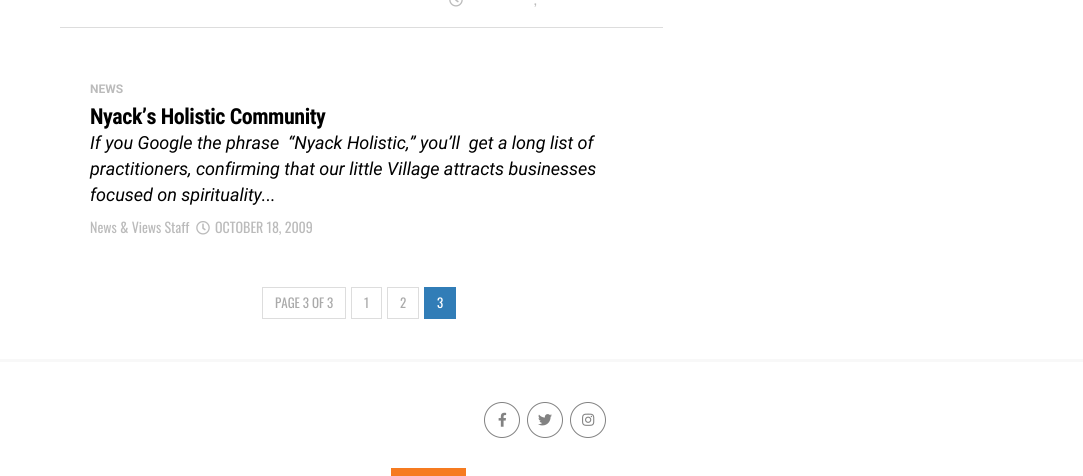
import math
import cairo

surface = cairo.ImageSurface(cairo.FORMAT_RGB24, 1083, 476)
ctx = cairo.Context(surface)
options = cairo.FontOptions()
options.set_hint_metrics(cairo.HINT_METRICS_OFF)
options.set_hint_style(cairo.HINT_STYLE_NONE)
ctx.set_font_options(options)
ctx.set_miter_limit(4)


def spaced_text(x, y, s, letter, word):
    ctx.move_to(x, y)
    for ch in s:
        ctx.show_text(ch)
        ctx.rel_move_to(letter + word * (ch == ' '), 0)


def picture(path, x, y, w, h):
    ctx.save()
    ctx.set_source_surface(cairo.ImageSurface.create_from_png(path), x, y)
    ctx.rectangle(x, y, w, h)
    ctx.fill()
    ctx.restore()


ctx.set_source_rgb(1, 1, 1)
ctx.paint()
picture("img1.png", 449, 0, 14, 7)
ctx.select_font_face("Oswald")
ctx.set_font_size(14)
ctx.set_source_rgb(0.733, 0.733, 0.733)
ctx.move_to(534, 5)
ctx.show_text(",")
ctx.set_source_rgb(0.867, 0.867, 0.867)
ctx.rectangle(60, 27, 603, 1)
ctx.fill()
ctx.select_font_face("Roboto", cairo.FONT_SLANT_NORMAL, cairo.FONT_WEIGHT_BOLD)
ctx.set_font_size(12)
ctx.set_source_rgb(0.733, 0.733, 0.733)
ctx.move_to(90, 93)
ctx.show_text("NEWS")
ctx.select_font_face("Roboto Condensed", cairo.FONT_SLANT_NORMAL, cairo.FONT_WEIGHT_BOLD)
ctx.set_font_size(22)
ctx.set_source_rgb(0, 0, 0)
spaced_text(90, 124, "Nyack’s Holistic Community", -0.45, 0)
ctx.select_font_face("Roboto", cairo.FONT_SLANT_ITALIC)
ctx.set_font_size(18)
ctx.move_to(90, 149)
ctx.show_text("If you Google the phrase  “Nyack Holistic,” you’ll  get a long list of")
ctx.move_to(90, 175)
ctx.show_text("practitioners, confirming that our little Village attracts businesses")
ctx.move_to(90, 201)
ctx.show_text("focused on spirituality...")
ctx.select_font_face("Oswald")
ctx.set_font_size(14)
ctx.set_source_rgb(0.733, 0.733, 0.733)
ctx.move_to(90, 233)
ctx.show_text("News & Views Staff")
picture("img2.png", 196, 221, 14, 14)
ctx.move_to(215, 233)
ctx.show_text("OCTOBER 18, 2009")
ctx.rectangle(262.5, 287.5, 83, 31)
ctx.set_source_rgb(0.867, 0.867, 0.867)
ctx.set_line_width(1)
ctx.stroke()
ctx.set_font_size(13)
ctx.set_source_rgb(0.667, 0.667, 0.667)
ctx.move_to(275, 308)
ctx.show_text("PAGE 3 OF 3")
ctx.rectangle(351.5, 287.5, 30, 31)
ctx.set_source_rgb(0.867, 0.867, 0.867)
ctx.stroke()
ctx.set_source_rgb(0.667, 0.667, 0.667)
ctx.move_to(364, 308)
ctx.show_text("1")
ctx.rectangle(387.5, 287.5, 31, 31)
ctx.set_source_rgb(0.867, 0.867, 0.867)
ctx.stroke()
ctx.set_source_rgb(0.667, 0.667, 0.667)
ctx.move_to(400, 308)
ctx.show_text("2")
ctx.set_source_rgb(0.192, 0.49, 0.718)
ctx.rectangle(424, 287, 32, 32)
ctx.fill()
ctx.set_source_rgb(1, 1, 1)
ctx.move_to(437, 308)
ctx.show_text("3")
ctx.set_source_rgb(0.969, 0.969, 0.969)
ctx.rectangle(0, 359, 1083, 3)
ctx.fill()
ctx.arc(502, 420, 17.5, 0, 2 * math.pi)
ctx.set_source_rgb(0.51, 0.51, 0.51)
ctx.stroke()
picture("img3.png", 498, 412, 9, 15)
ctx.arc(545, 420, 17.5, 0, 2 * math.pi)
ctx.stroke()
picture("img4.png", 538, 414, 14, 12)
ctx.arc(588, 420, 17.5, 0, 2 * math.pi)
ctx.stroke()
picture("img5.png", 582, 413, 13, 13)
ctx.set_source_rgb(0.961, 0.482, 0.125)
ctx.rectangle(391, 468, 75, 8)
ctx.fill()
surface.write_to_png("page.png")
